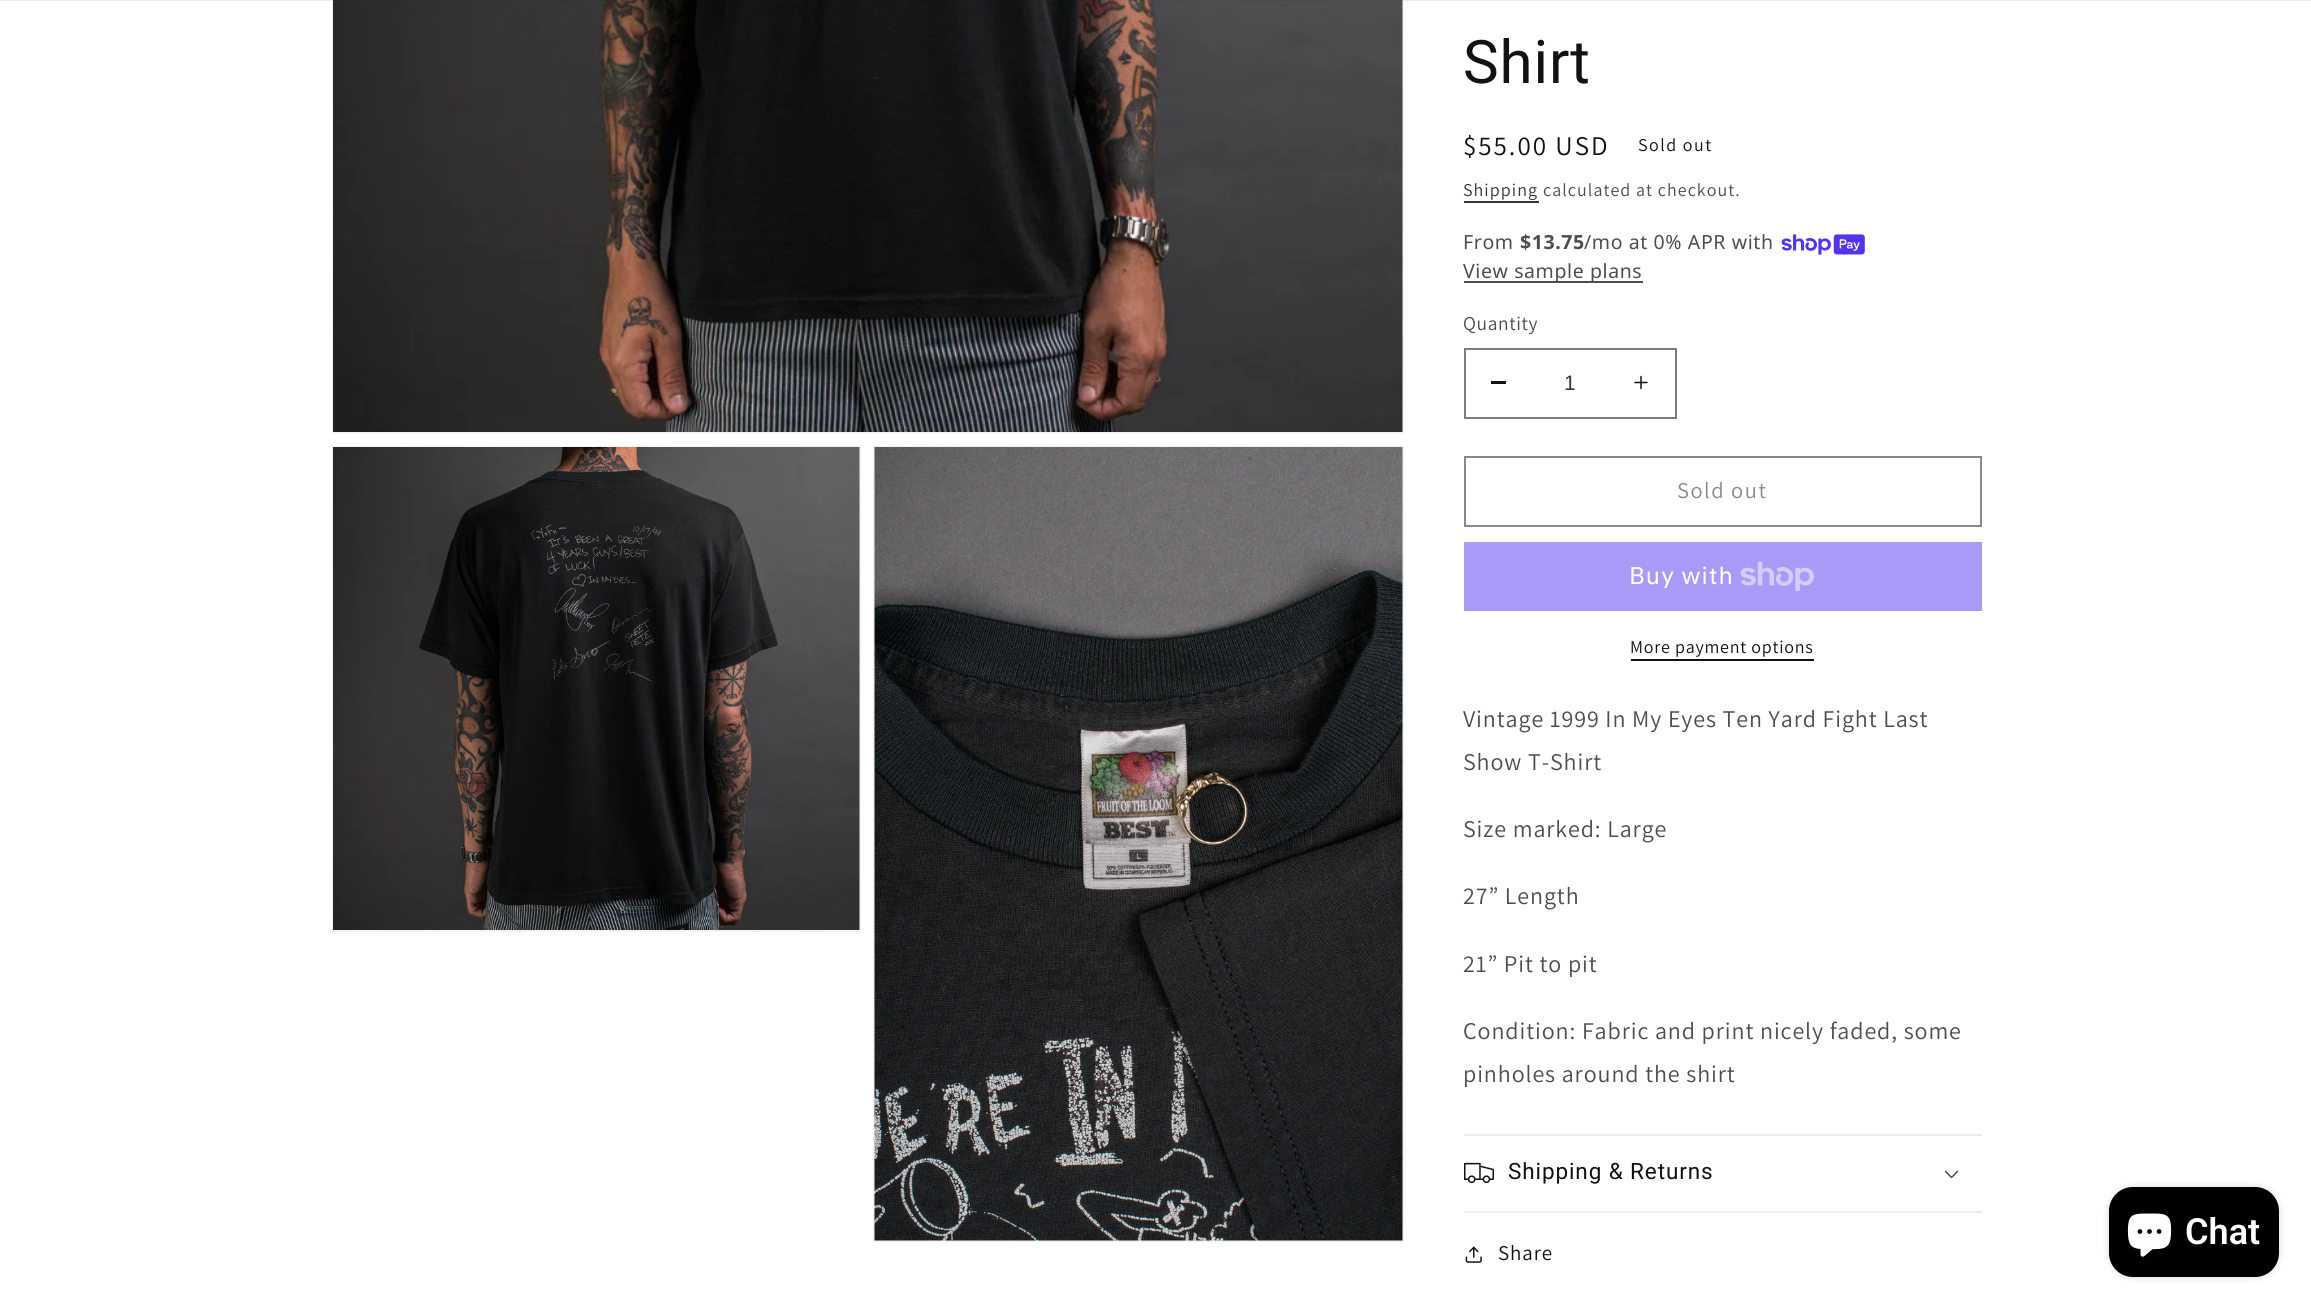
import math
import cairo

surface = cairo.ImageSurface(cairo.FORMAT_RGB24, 2311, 1308)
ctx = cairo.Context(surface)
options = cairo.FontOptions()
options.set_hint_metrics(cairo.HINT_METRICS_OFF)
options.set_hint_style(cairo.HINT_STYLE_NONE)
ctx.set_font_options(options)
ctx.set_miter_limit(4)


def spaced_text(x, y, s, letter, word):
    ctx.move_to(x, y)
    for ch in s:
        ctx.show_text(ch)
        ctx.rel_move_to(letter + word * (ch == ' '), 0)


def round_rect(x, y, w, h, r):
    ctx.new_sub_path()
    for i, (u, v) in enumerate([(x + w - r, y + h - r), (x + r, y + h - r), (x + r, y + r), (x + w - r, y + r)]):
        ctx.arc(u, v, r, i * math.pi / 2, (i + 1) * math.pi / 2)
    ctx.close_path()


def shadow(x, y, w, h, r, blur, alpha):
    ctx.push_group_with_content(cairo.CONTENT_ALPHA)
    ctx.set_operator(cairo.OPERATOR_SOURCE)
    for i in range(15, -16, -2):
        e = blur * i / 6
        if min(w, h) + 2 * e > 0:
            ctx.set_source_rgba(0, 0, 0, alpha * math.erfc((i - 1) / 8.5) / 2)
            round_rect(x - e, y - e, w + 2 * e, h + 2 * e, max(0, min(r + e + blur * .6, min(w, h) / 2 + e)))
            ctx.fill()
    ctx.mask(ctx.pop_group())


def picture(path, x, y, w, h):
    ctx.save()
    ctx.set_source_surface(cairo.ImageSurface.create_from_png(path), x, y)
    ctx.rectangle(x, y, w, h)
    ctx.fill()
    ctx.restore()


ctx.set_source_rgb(1, 1, 1)
ctx.paint()
ctx.rectangle(333, -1, 1070, 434)
ctx.set_source_rgb(0.953, 0.953, 0.953)
ctx.stroke()
picture("img1.png", 333, 0, 1070, 432)
ctx.set_source_rgba(0.071, 0.071, 0.071, 0.08)
ctx.rectangle(0, 0, 2311, 1)
ctx.fill()
ctx.rectangle(333, 447, 527, 484)
ctx.set_source_rgb(0.953, 0.953, 0.953)
ctx.stroke()
picture("img2.png", 333, 447, 527, 483)
ctx.rectangle(874, 447, 529, 794)
ctx.stroke()
picture("img3.png", 874, 447, 529, 794)
ctx.select_font_face("Roboto")
ctx.set_font_size(60)
ctx.set_source_rgb(0.071, 0.071, 0.071)
spaced_text(1463, 83, "Shirt", 0.9, 0)
ctx.select_font_face("Assistant")
ctx.set_font_size(27)
spaced_text(1463, 155, "$55.00 USD", 2, 0)
ctx.set_font_size(18)
spaced_text(1638, 151, "Sold out", 1.5, 0)
ctx.set_source_rgb(0.212, 0.212, 0.212)
spaced_text(1463, 196, "Shipping", 1.05, 0)
ctx.rectangle(1464, 201, 75, 2)
ctx.fill()
ctx.set_source_rgb(0.302, 0.302, 0.302)
spaced_text(1543, 196, "calculated at checkout.", 1.05, 0)
ctx.select_font_face("Noto Sans")
ctx.set_font_size(19.5)
spaced_text(1463, 249, "From", 0.6, 0)
ctx.select_font_face("Noto Sans", cairo.FONT_SLANT_NORMAL, cairo.FONT_WEIGHT_BOLD)
spaced_text(1520, 249, "$13.75", 0.6, 0)
ctx.select_font_face("Noto Sans")
spaced_text(1584, 249, "/mo at 0% APR with", 0.6, 0)
picture("img4.png", 1781, 234, 84, 21)
ctx.rectangle(1464, 281, 179, 2)
ctx.fill()
spaced_text(1463, 278, "View sample plans", 0.6, 0)
ctx.select_font_face("Assistant")
spaced_text(1463, 330, "Quantity", 0.6, 0)
ctx.set_source_rgb(0.071, 0.071, 0.071)
ctx.rectangle(1491, 381, 15, 3)
ctx.fill()
picture("img5.png", 1634, 375, 14, 15)
ctx.rectangle(1465, 349, 211, 69)
ctx.set_source_rgb(0.49, 0.49, 0.49)
ctx.stroke()
ctx.select_font_face("Liberation Sans")
ctx.set_font_size(21)
ctx.set_source_rgb(0.212, 0.212, 0.212)
ctx.move_to(1564, 390)
ctx.show_text("1")
ctx.rectangle(1465, 457, 516, 69)
ctx.set_source_rgb(0.537, 0.537, 0.537)
ctx.stroke()
ctx.select_font_face("Assistant")
ctx.set_font_size(22.5)
spaced_text(1677, 498, "Sold out", 1.5, 0)
ctx.set_source_rgb(0.667, 0.6, 0.961)
ctx.rectangle(1464, 542, 518, 69)
ctx.fill()
ctx.select_font_face("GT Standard")
ctx.set_font_size(24)
ctx.set_source_rgb(1, 1, 1)
spaced_text(1629, 584, "Buy with", 0.9, 0)
picture("img6.png", 1740, 561, 74, 30)
ctx.select_font_face("Assistant")
ctx.set_font_size(18)
ctx.set_source_rgb(0.071, 0.071, 0.071)
spaced_text(1630, 653, "More payment options", 0.75, 0)
ctx.rectangle(1631, 659, 183, 2)
ctx.fill()
ctx.set_font_size(24)
ctx.set_source_rgb(0.302, 0.302, 0.302)
spaced_text(1463, 727, "Vintage 1999 In My Eyes Ten Yard Fight Last", 0.9, 0)
spaced_text(1463, 770, "Show T-Shirt", 0.9, 0)
spaced_text(1463, 837, "Size marked: Large", 0.9, 0)
spaced_text(1463, 904, "27” Length", 0.9, 0)
spaced_text(1463, 972, "21” Pit to pit", 0.9, 0)
spaced_text(1463, 1039, "Condition: Fabric and print nicely faded, some", 0.9, 0)
spaced_text(1463, 1082, "pinholes around the shirt", 0.9, 0)
ctx.set_source_rgb(0.925, 0.925, 0.925)
ctx.rectangle(1464, 1134, 518, 2)
ctx.fill()
ctx.rectangle(1464, 1211, 518, 2)
ctx.fill()
picture("img7.png", 1464, 1162, 30, 22)
ctx.select_font_face("Roboto")
ctx.set_font_size(22.5)
ctx.set_source_rgb(0.071, 0.071, 0.071)
spaced_text(1508, 1179, "Shipping & Returns", 0.9, 0)
picture("img8.png", 1944, 1170, 15, 9)
picture("img9.png", 1465, 1246, 17, 17)
ctx.select_font_face("Assistant")
ctx.set_font_size(21)
spaced_text(1498, 1260, "Share", 0.9, 0)
ctx.set_source_rgb(0, 0, 0)
shadow(2109, 1187, 170, 90, 24, 4, 0.15)
ctx.set_source_rgb(0, 0, 0)
round_rect(2109, 1187, 170, 90, 24)
ctx.fill()
picture("img10.png", 2127, 1213, 45, 44)
ctx.select_font_face("Roboto SemiBold")
ctx.set_font_size(36)
ctx.set_source_rgb(1, 1, 1)
ctx.move_to(2185, 1244)
ctx.show_text("Chat")
surface.write_to_png("page.png")
